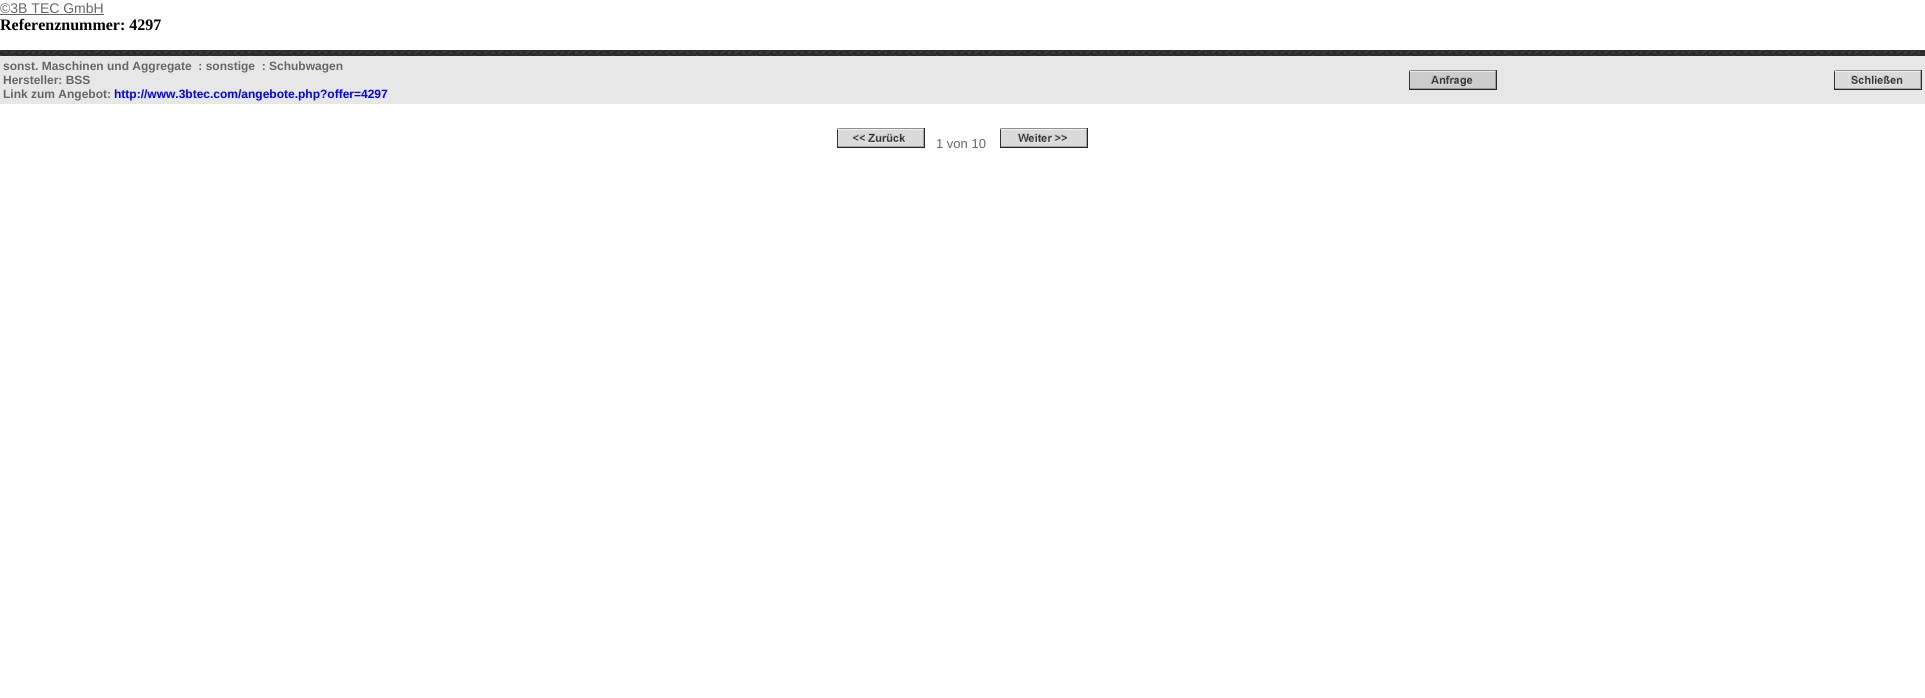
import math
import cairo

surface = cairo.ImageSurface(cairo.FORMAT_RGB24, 1925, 698)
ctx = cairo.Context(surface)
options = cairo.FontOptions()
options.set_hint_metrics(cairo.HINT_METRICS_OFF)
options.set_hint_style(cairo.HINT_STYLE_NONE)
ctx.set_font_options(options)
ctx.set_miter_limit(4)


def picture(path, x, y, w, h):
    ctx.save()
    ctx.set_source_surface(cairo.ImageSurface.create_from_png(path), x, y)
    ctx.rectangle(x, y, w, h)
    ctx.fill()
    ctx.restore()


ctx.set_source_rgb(1, 1, 1)
ctx.paint()
ctx.select_font_face("Liberation Sans")
ctx.set_font_size(14)
ctx.set_source_rgb(0.4, 0.4, 0.4)
ctx.move_to(0, 13)
ctx.show_text("©3B TEC GmbH")
ctx.rectangle(0, 14, 104, 1)
ctx.fill()
ctx.select_font_face("Liberation Serif", cairo.FONT_SLANT_NORMAL, cairo.FONT_WEIGHT_BOLD)
ctx.set_font_size(16)
ctx.set_source_rgb(0, 0, 0)
ctx.move_to(0, 30)
ctx.show_text("Referenznummer: 4297")
picture("img1.png", 0, 50, 1925, 6)
ctx.set_source_rgb(0.906, 0.906, 0.906)
ctx.rectangle(0, 56, 1925, 48)
ctx.fill()
ctx.select_font_face("Liberation Sans", cairo.FONT_SLANT_NORMAL, cairo.FONT_WEIGHT_BOLD)
ctx.set_font_size(12)
ctx.set_source_rgb(0.4, 0.4, 0.4)
ctx.move_to(3, 70)
ctx.show_text("sonst. Maschinen und Aggregate  : sonstige  : Schubwagen")
ctx.move_to(3, 84)
ctx.show_text("Hersteller: BSS")
ctx.move_to(3, 98)
ctx.show_text("Link zum Angebot:")
ctx.set_source_rgb(0, 0, 1)
ctx.move_to(114, 98)
ctx.show_text("http://www.3btec.com/angebote.php?offer=4297")
picture("img2.png", 1409, 70, 88, 20)
picture("img3.png", 1834, 70, 88, 20)
picture("img4.png", 837, 128, 88, 20)
ctx.select_font_face("Liberation Sans")
ctx.set_font_size(13)
ctx.set_source_rgb(0.4, 0.4, 0.4)
ctx.move_to(936, 148)
ctx.show_text("1 von 10")
picture("img5.png", 1000, 128, 88, 20)
surface.write_to_png("page.png")
